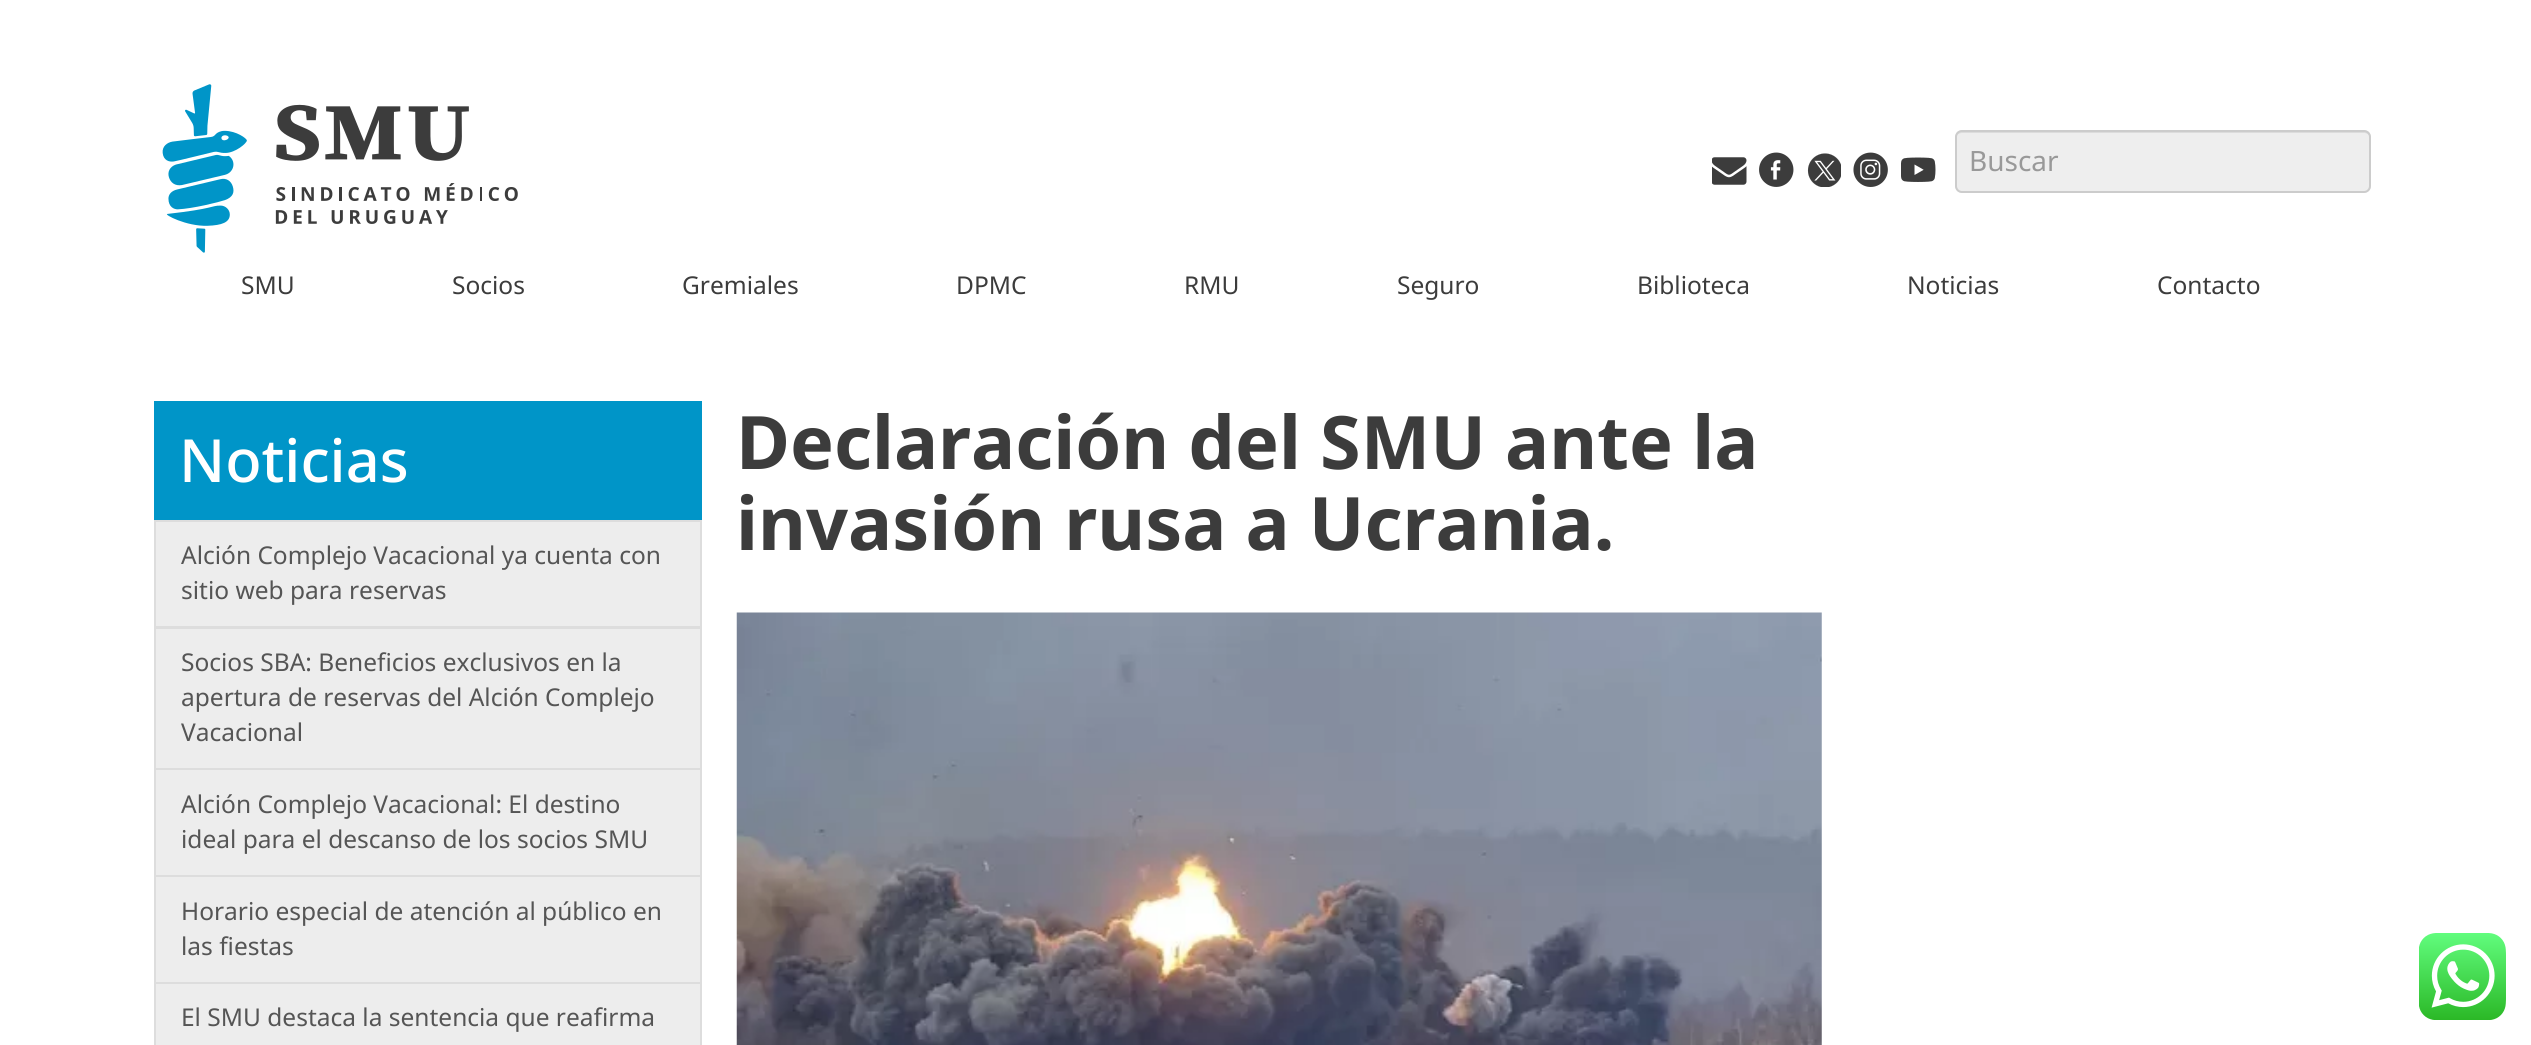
import math
import cairo

surface = cairo.ImageSurface(cairo.FORMAT_RGB24, 2531, 1045)
ctx = cairo.Context(surface)
options = cairo.FontOptions()
options.set_hint_metrics(cairo.HINT_METRICS_OFF)
options.set_hint_style(cairo.HINT_STYLE_NONE)
ctx.set_font_options(options)
ctx.set_miter_limit(4)


def round_rect(x, y, w, h, r):
    ctx.new_sub_path()
    for i, (u, v) in enumerate([(x + w - r, y + h - r), (x + r, y + h - r), (x + r, y + r), (x + w - r, y + r)]):
        ctx.arc(u, v, r, i * math.pi / 2, (i + 1) * math.pi / 2)
    ctx.close_path()


def picture(path, x, y, w, h):
    ctx.save()
    ctx.set_source_surface(cairo.ImageSurface.create_from_png(path), x, y)
    ctx.rectangle(x, y, w, h)
    ctx.fill()
    ctx.restore()


ctx.set_source_rgb(1, 1, 1)
ctx.paint()
picture("img1.png", 162, 84, 356, 169)
picture("img2.png", 1712, 157, 35, 28)
picture("img3.png", 1759, 152, 35, 35)
picture("img4.png", 1807, 153, 34, 34)
picture("img5.png", 1853, 152, 35, 35)
picture("img6.png", 1901, 157, 35, 25)
ctx.set_source_rgb(0.933, 0.933, 0.933)
round_rect(1955, 130, 416, 63, 7)
ctx.fill()
ctx.set_source_rgb(0.863, 0.863, 0.863)
ctx.new_path()
ctx.move_to(1962, 133)
ctx.line_to(2364, 133)
ctx.curve_to(2367, 133, 2370, 135, 2370, 138)
ctx.line_to(2370, 136)
ctx.curve_to(2370, 133, 2368, 131, 2365, 131)
ctx.line_to(1962, 131)
ctx.curve_to(1960, 131, 1957, 133, 1957, 135)
ctx.curve_to(1958, 134, 1960, 133, 1962, 133)
ctx.close_path()
ctx.fill()
round_rect(1956, 131, 414, 61, 6)
ctx.set_source_rgb(0.8, 0.8, 0.8)
ctx.stroke()
ctx.select_font_face("Noto Sans")
ctx.set_font_size(28)
ctx.set_source_rgb(0.6, 0.6, 0.6)
ctx.move_to(1969, 171)
ctx.show_text("Buscar")
ctx.set_font_size(24.5)
ctx.set_source_rgb(0.235, 0.235, 0.235)
ctx.move_to(241, 294)
ctx.show_text("SMU")
ctx.move_to(452, 294)
ctx.show_text("Socios")
ctx.move_to(682, 294)
ctx.show_text("Gremiales")
ctx.move_to(956, 294)
ctx.show_text("DPMC")
ctx.move_to(1184, 294)
ctx.show_text("RMU")
ctx.move_to(1397, 294)
ctx.show_text("Seguro")
ctx.move_to(1637, 294)
ctx.show_text("Biblioteca")
ctx.move_to(1907, 294)
ctx.show_text("Noticias")
ctx.move_to(2157, 294)
ctx.show_text("Contacto")
ctx.set_source_rgb(0, 0.584, 0.784)
ctx.rectangle(154, 401, 548, 119)
ctx.fill()
ctx.select_font_face("Noto Sans Medium")
ctx.set_font_size(59.5)
ctx.set_source_rgb(1, 1, 1)
ctx.move_to(179, 482)
ctx.show_text("Noticias")
ctx.set_source_rgb(0.929, 0.929, 0.929)
ctx.rectangle(155, 521, 546, 106)
ctx.fill_preserve()
ctx.set_source_rgb(0.867, 0.867, 0.867)
ctx.stroke()
ctx.select_font_face("Noto Sans")
ctx.set_font_size(24.5)
ctx.set_source_rgb(0.333, 0.333, 0.333)
ctx.move_to(181, 564)
ctx.show_text("Alción Complejo Vacacional ya cuenta con")
ctx.move_to(181, 599)
ctx.show_text("sitio web para reservas")
ctx.set_source_rgb(0.929, 0.929, 0.929)
ctx.rectangle(155, 628, 546, 141)
ctx.fill_preserve()
ctx.set_source_rgb(0.867, 0.867, 0.867)
ctx.stroke()
ctx.set_source_rgb(0.333, 0.333, 0.333)
ctx.move_to(181, 671)
ctx.show_text("Socios SBA: Beneficios exclusivos en la")
ctx.move_to(181, 706)
ctx.show_text("apertura de reservas del Alción Complejo")
ctx.move_to(181, 741)
ctx.show_text("Vacacional")
ctx.set_source_rgb(0.929, 0.929, 0.929)
ctx.rectangle(155, 769, 546, 107)
ctx.fill_preserve()
ctx.set_source_rgb(0.867, 0.867, 0.867)
ctx.stroke()
ctx.set_source_rgb(0.333, 0.333, 0.333)
ctx.move_to(181, 813)
ctx.show_text("Alción Complejo Vacacional: El destino")
ctx.move_to(181, 848)
ctx.show_text("ideal para el descanso de los socios SMU")
ctx.set_source_rgb(0.929, 0.929, 0.929)
ctx.rectangle(155, 876, 546, 107)
ctx.fill_preserve()
ctx.set_source_rgb(0.867, 0.867, 0.867)
ctx.stroke()
ctx.set_source_rgb(0.333, 0.333, 0.333)
ctx.move_to(181, 920)
ctx.show_text("Horario especial de atención al público en")
ctx.move_to(181, 955)
ctx.show_text("las fiestas")
ctx.set_source_rgb(0.929, 0.929, 0.929)
ctx.rectangle(155, 983, 546, 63)
ctx.fill_preserve()
ctx.set_source_rgb(0.867, 0.867, 0.867)
ctx.stroke()
ctx.set_source_rgb(0.333, 0.333, 0.333)
ctx.move_to(181, 1026)
ctx.show_text("El SMU destaca la sentencia que reafirma")
ctx.select_font_face("Noto Sans", cairo.FONT_SLANT_NORMAL, cairo.FONT_WEIGHT_BOLD)
ctx.set_font_size(73.7)
ctx.set_source_rgb(0.235, 0.235, 0.235)
ctx.move_to(736, 469)
ctx.show_text("Declaración del SMU ante la")
ctx.move_to(736, 550)
ctx.show_text("invasión rusa a Ucrania.")
picture("img7.png", 736, 612, 1086, 433)
picture("img8.png", 2419, 933, 87, 87)
surface.write_to_png("page.png")
